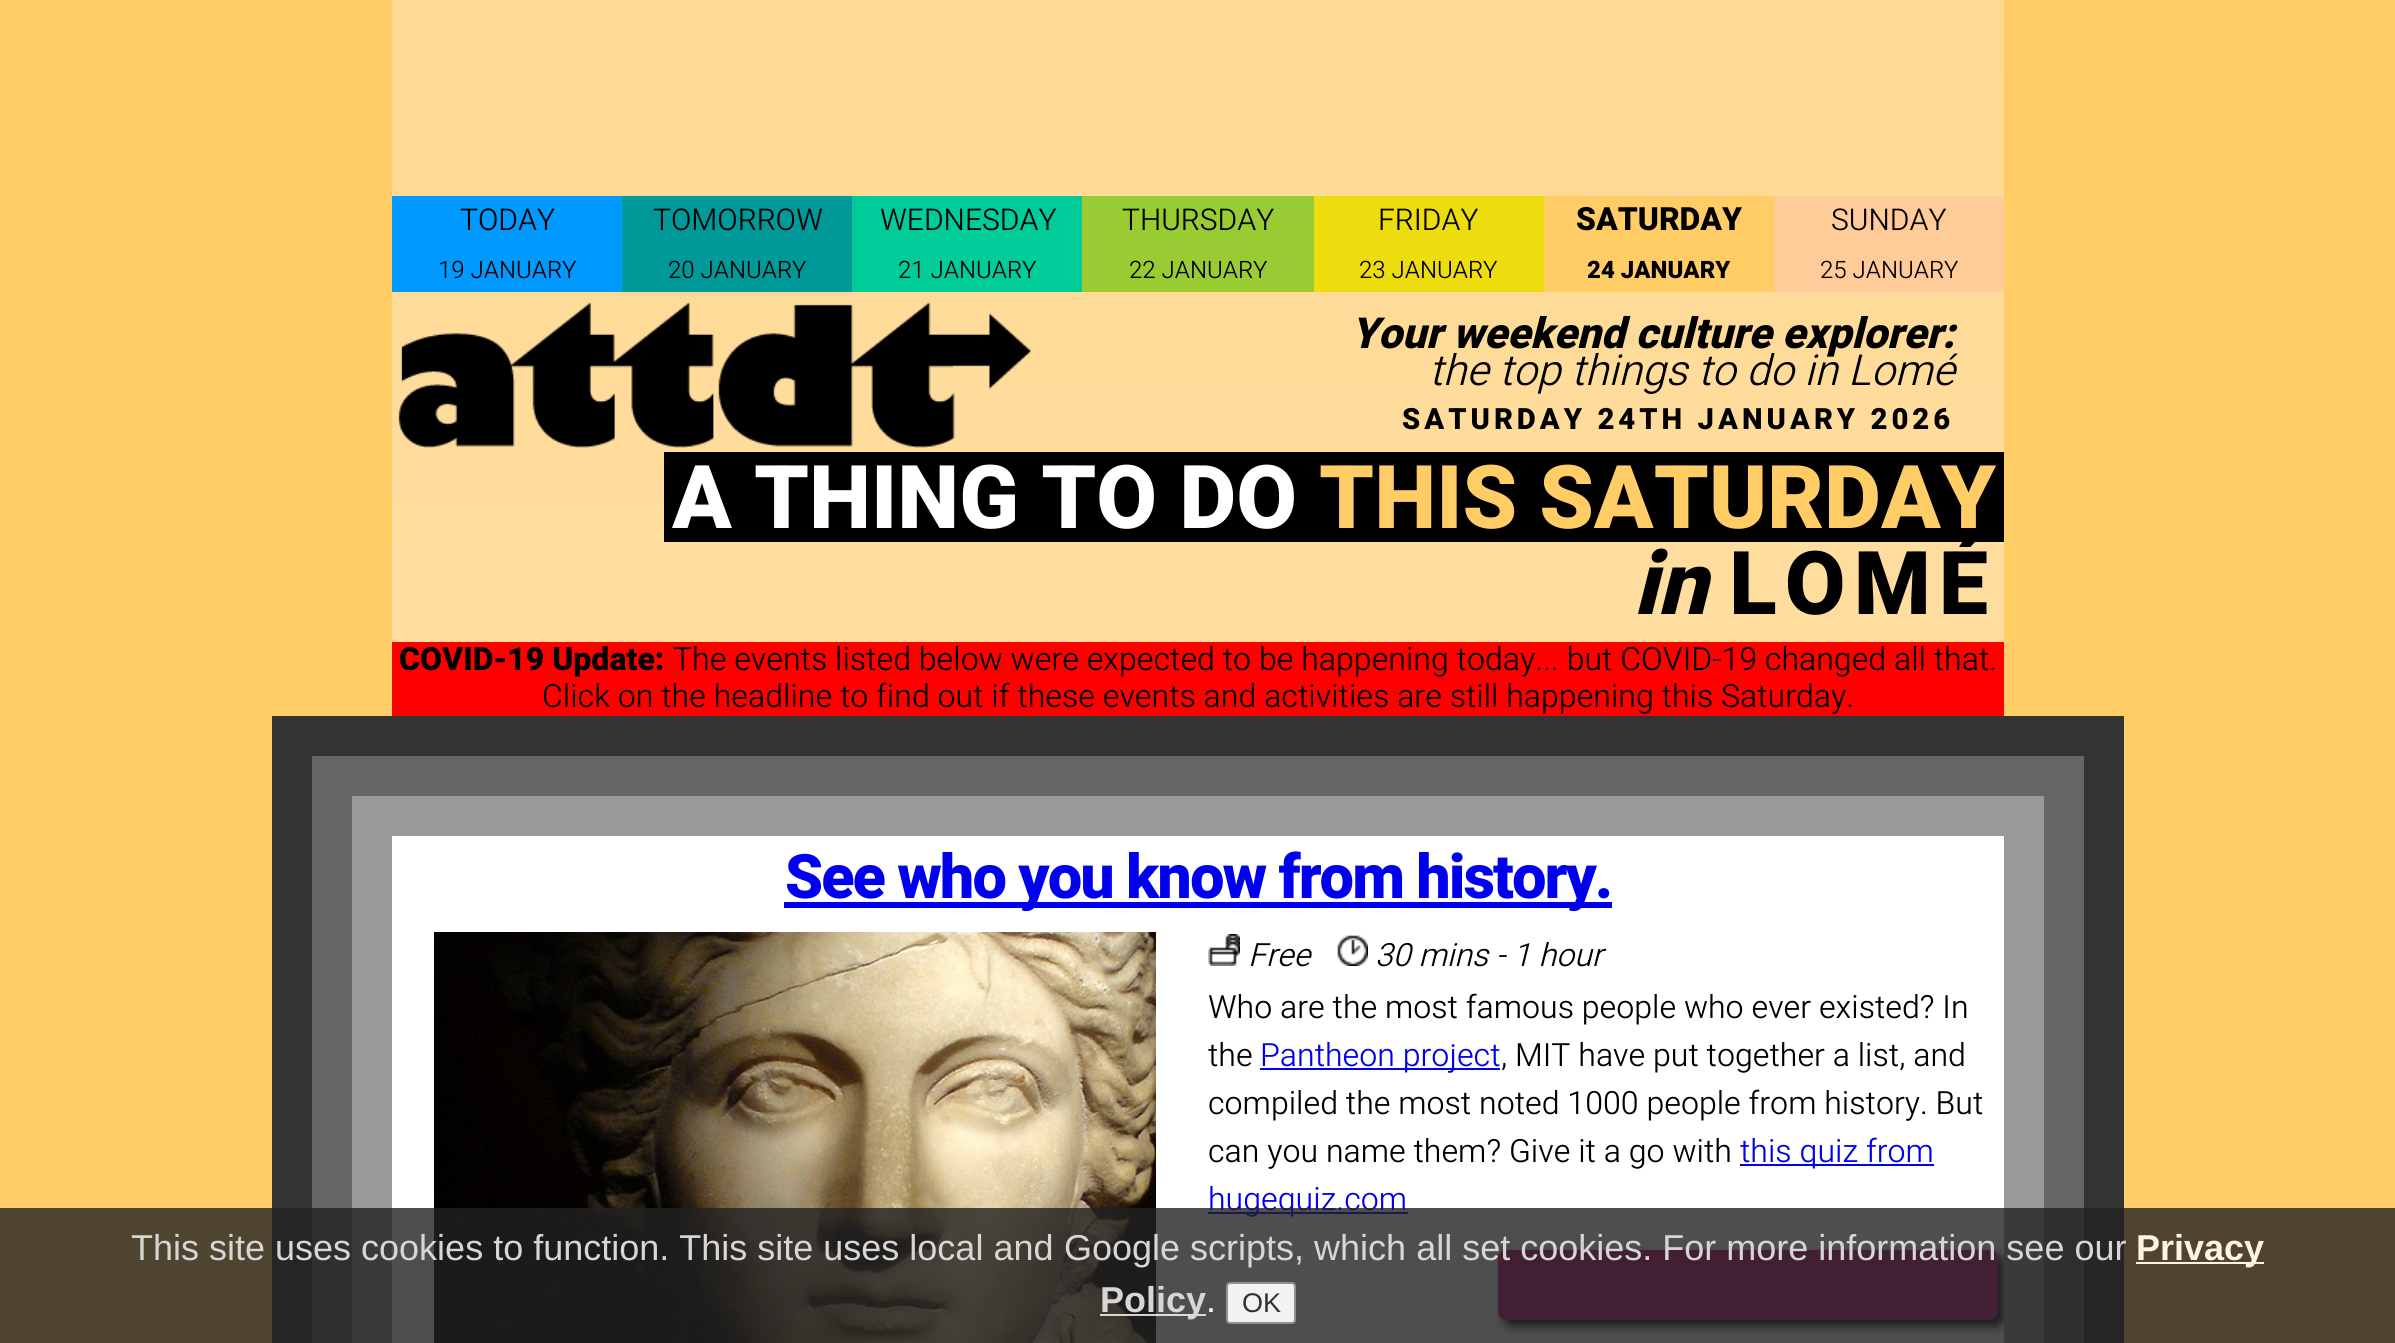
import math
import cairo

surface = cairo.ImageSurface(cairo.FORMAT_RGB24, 2395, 1343)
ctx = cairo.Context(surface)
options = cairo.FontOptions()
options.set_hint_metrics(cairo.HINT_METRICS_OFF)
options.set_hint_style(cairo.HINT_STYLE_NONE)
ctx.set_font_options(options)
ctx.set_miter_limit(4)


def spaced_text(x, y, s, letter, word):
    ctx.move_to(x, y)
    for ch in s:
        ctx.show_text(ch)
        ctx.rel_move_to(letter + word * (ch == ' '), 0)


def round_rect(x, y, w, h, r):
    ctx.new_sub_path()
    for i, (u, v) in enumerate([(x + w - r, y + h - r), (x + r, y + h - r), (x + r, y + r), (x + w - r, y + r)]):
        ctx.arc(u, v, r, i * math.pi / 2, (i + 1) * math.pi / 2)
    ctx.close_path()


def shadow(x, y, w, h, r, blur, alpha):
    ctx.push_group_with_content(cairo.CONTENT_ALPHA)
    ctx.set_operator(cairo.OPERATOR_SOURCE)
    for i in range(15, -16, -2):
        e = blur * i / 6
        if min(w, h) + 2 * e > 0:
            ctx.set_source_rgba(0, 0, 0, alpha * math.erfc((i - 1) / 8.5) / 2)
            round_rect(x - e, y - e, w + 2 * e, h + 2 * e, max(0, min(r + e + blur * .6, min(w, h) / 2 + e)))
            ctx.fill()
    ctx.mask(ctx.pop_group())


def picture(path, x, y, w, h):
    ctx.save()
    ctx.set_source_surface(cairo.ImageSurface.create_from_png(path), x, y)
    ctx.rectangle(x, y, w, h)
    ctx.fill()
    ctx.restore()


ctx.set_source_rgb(1, 0.8, 0.4)
ctx.paint()
gradient = cairo.LinearGradient(1198, 0, 1198, 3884)
gradient.add_color_stop_rgba(0, 1, 0.851, 0.576, 1)
gradient.add_color_stop_rgba(1, 1, 0.957, 0.878, 1)
ctx.set_source(gradient)
ctx.rectangle(392, 0, 1612, 642)
ctx.fill()
ctx.set_source_rgb(0, 0.6, 1)
ctx.rectangle(392, 196, 230, 96)
ctx.fill()
ctx.select_font_face("Heebo Light")
ctx.set_font_size(30)
ctx.set_source_rgb(0, 0, 0)
ctx.move_to(460, 230)
ctx.show_text("TODAY")
ctx.set_font_size(24)
ctx.move_to(438, 278)
ctx.show_text("19 JANUARY")
ctx.set_source_rgb(0, 0.6, 0.6)
ctx.rectangle(622, 196, 230, 96)
ctx.fill()
ctx.set_font_size(30)
ctx.set_source_rgb(0, 0, 0)
ctx.move_to(653, 230)
ctx.show_text("TOMORROW")
ctx.set_font_size(24)
ctx.move_to(668, 278)
ctx.show_text("20 JANUARY")
ctx.set_source_rgb(0, 0.8, 0.6)
ctx.rectangle(852, 196, 230, 96)
ctx.fill()
ctx.set_font_size(30)
ctx.set_source_rgb(0, 0, 0)
ctx.move_to(880, 230)
ctx.show_text("WEDNESDAY")
ctx.set_font_size(24)
ctx.move_to(898, 278)
ctx.show_text("21 JANUARY")
ctx.set_source_rgb(0.6, 0.8, 0.2)
ctx.rectangle(1082, 196, 232, 96)
ctx.fill()
ctx.set_font_size(30)
ctx.set_source_rgb(0, 0, 0)
ctx.move_to(1122, 230)
ctx.show_text("THURSDAY")
ctx.set_font_size(24)
ctx.move_to(1129, 278)
ctx.show_text("22 JANUARY")
ctx.set_source_rgb(0.933, 0.867, 0.055)
ctx.rectangle(1314, 196, 230, 96)
ctx.fill()
ctx.set_font_size(30)
ctx.set_source_rgb(0, 0, 0)
ctx.move_to(1378, 230)
ctx.show_text("FRIDAY")
ctx.set_font_size(24)
ctx.move_to(1359, 278)
ctx.show_text("23 JANUARY")
ctx.set_source_rgb(1, 0.8, 0.4)
ctx.rectangle(1544, 196, 230, 96)
ctx.fill()
ctx.select_font_face("Heebo ExtraBold")
ctx.set_font_size(32)
ctx.set_source_rgb(0, 0, 0)
ctx.move_to(1576, 230)
ctx.show_text("SATURDAY")
ctx.set_font_size(24)
ctx.move_to(1587, 278)
ctx.show_text("24 JANUARY")
ctx.set_source_rgb(1, 0.8, 0.6)
ctx.rectangle(1774, 196, 230, 96)
ctx.fill()
ctx.select_font_face("Heebo Light")
ctx.set_font_size(30)
ctx.set_source_rgb(0, 0, 0)
ctx.move_to(1831, 230)
ctx.show_text("SUNDAY")
ctx.set_font_size(24)
ctx.move_to(1820, 278)
ctx.show_text("25 JANUARY")
picture("img1.png", 398, 302, 633, 146)
ctx.select_font_face("Heebo ExtraBold", cairo.FONT_SLANT_ITALIC)
ctx.set_font_size(42.7)
ctx.move_to(1351, 348)
ctx.show_text("Your weekend culture explorer:")
ctx.select_font_face("Heebo Light", cairo.FONT_SLANT_ITALIC)
ctx.move_to(1429, 385)
ctx.show_text("the top things to do in Lomé")
ctx.select_font_face("Heebo ExtraBold")
ctx.set_font_size(29.3)
spaced_text(1402, 429, "SATURDAY 24TH JANUARY 2026", 4, 0)
ctx.rectangle(664, 452, 1340, 90)
ctx.fill()
ctx.set_font_size(88)
ctx.set_source_rgb(1, 1, 1)
ctx.move_to(672, 528)
ctx.show_text("A THING TO DO")
ctx.set_source_rgb(1, 0.8, 0.4)
ctx.move_to(1319, 528)
ctx.show_text("THIS SATURDAY")
ctx.select_font_face("Heebo ExtraBold", cairo.FONT_SLANT_ITALIC)
ctx.set_source_rgb(0, 0, 0)
ctx.move_to(1633, 614)
ctx.show_text("in")
ctx.select_font_face("Heebo ExtraBold")
spaced_text(1729, 614, "LOMÉ", 8, 0)
ctx.set_source_rgb(1, 0, 0)
ctx.rectangle(392, 642, 1612, 74)
ctx.fill()
ctx.set_font_size(32)
ctx.set_source_rgb(0, 0, 0)
ctx.move_to(399, 670)
ctx.show_text("COVID-19 Update:")
ctx.select_font_face("Heebo Light")
ctx.move_to(673, 670)
ctx.show_text("The events listed below were expected to be happening today... but COVID-19 changed all that.")
ctx.move_to(542, 707)
ctx.show_text("Click on the headline to find out if these events and activities are still happening this Saturday.")
ctx.rectangle(332, 776, 1732, 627)
ctx.set_source_rgb(0.2, 0.2, 0.2)
ctx.set_line_width(120)
ctx.stroke()
ctx.rectangle(352, 796, 1692, 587)
ctx.set_source_rgb(0.4, 0.4, 0.4)
ctx.set_line_width(80)
ctx.stroke()
ctx.rectangle(372, 816, 1652, 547)
ctx.set_source_rgb(0.6, 0.6, 0.6)
ctx.set_line_width(40)
ctx.stroke()
ctx.set_source_rgb(1, 1, 1)
ctx.rectangle(392, 836, 1612, 507)
ctx.fill()
ctx.set_source_rgb(0, 0, 0.933)
ctx.rectangle(784, 902, 828, 6)
ctx.fill()
ctx.select_font_face("Heebo ExtraBold")
ctx.set_font_size(61.3)
spaced_text(785, 898, "See who you know from history.", -2, 0)
picture("img2.png", 434, 932, 722, 411)
picture("img3.png", 1208, 934, 32, 32)
ctx.select_font_face("Heebo Light", cairo.FONT_SLANT_ITALIC)
ctx.set_font_size(32)
ctx.set_source_rgb(0, 0, 0)
ctx.move_to(1248, 966)
ctx.show_text("Free")
picture("img4.png", 1337, 935, 31, 31)
ctx.move_to(1375, 966)
ctx.show_text("30 mins - 1 hour")
ctx.select_font_face("Heebo Light")
ctx.move_to(1208, 1018)
ctx.show_text("Who are the most famous people who ever existed? In")
ctx.move_to(1208, 1066)
ctx.show_text("the")
ctx.set_source_rgb(0, 0, 0.933)
ctx.rectangle(1260, 1068, 240, 2)
ctx.fill()
ctx.move_to(1260, 1066)
ctx.show_text("Pantheon project")
ctx.set_source_rgb(0, 0, 0)
ctx.move_to(1501, 1066)
ctx.show_text(", MIT have put together a list, and")
ctx.move_to(1208, 1114)
ctx.show_text("compiled the most noted 1000 people from history. But")
ctx.move_to(1208, 1162)
ctx.show_text("can you name them? Give it a go with")
ctx.set_source_rgb(0, 0, 0.933)
ctx.rectangle(1740, 1164, 194, 2)
ctx.fill()
ctx.move_to(1740, 1162)
ctx.show_text("this quiz from")
ctx.rectangle(1208, 1212, 200, 2)
ctx.fill()
ctx.move_to(1208, 1210)
ctx.show_text("hugequiz.com")
ctx.save()
ctx.rectangle(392, 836, 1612, 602)
ctx.clip()
ctx.set_source_rgb(0, 0, 0)
shadow(1504, 1256, 500, 70, 8, 5, 1)
ctx.restore()
ctx.set_source_rgb(0.792, 0.082, 0.475)
round_rect(1498, 1250, 500, 70, 8)
ctx.fill()
ctx.set_source_rgba(0.133, 0.133, 0.133, 0.8)
ctx.rectangle(0, 1208, 2395, 135)
ctx.fill()
ctx.select_font_face("Liberation Sans")
ctx.set_font_size(36)
ctx.set_source_rgb(0.839, 0.839, 0.831)
ctx.move_to(131, 1260)
ctx.show_text("This site uses cookies to function. This site uses local and")
ctx.move_to(1064, 1260)
ctx.show_text("Google scripts, which all set cookies. For more information see our")
ctx.set_source_rgb(1, 0.961, 0.878)
ctx.rectangle(2136, 1262, 128, 2)
ctx.fill()
ctx.select_font_face("Liberation Sans", cairo.FONT_SLANT_NORMAL, cairo.FONT_WEIGHT_BOLD)
ctx.move_to(2136, 1260)
ctx.show_text("Privacy")
ctx.set_source_rgba(1, 1, 1, 0.8)
ctx.rectangle(1100, 1314, 106, 2)
ctx.fill()
ctx.set_source_rgb(0.839, 0.839, 0.831)
ctx.move_to(1100, 1312)
ctx.show_text("Policy")
ctx.select_font_face("Liberation Sans")
ctx.set_source_rgb(1, 1, 1)
ctx.move_to(1206, 1312)
ctx.show_text(".")
ctx.set_source_rgb(0.949, 0.949, 0.949)
round_rect(1227, 1283, 68, 40, 3)
ctx.fill_preserve()
ctx.set_source_rgb(0.569, 0.569, 0.569)
ctx.set_line_width(2)
ctx.stroke()
ctx.set_font_size(27)
ctx.set_source_rgb(0.2, 0.2, 0.2)
ctx.move_to(1242, 1312)
ctx.show_text("OK")
surface.write_to_png("page.png")
